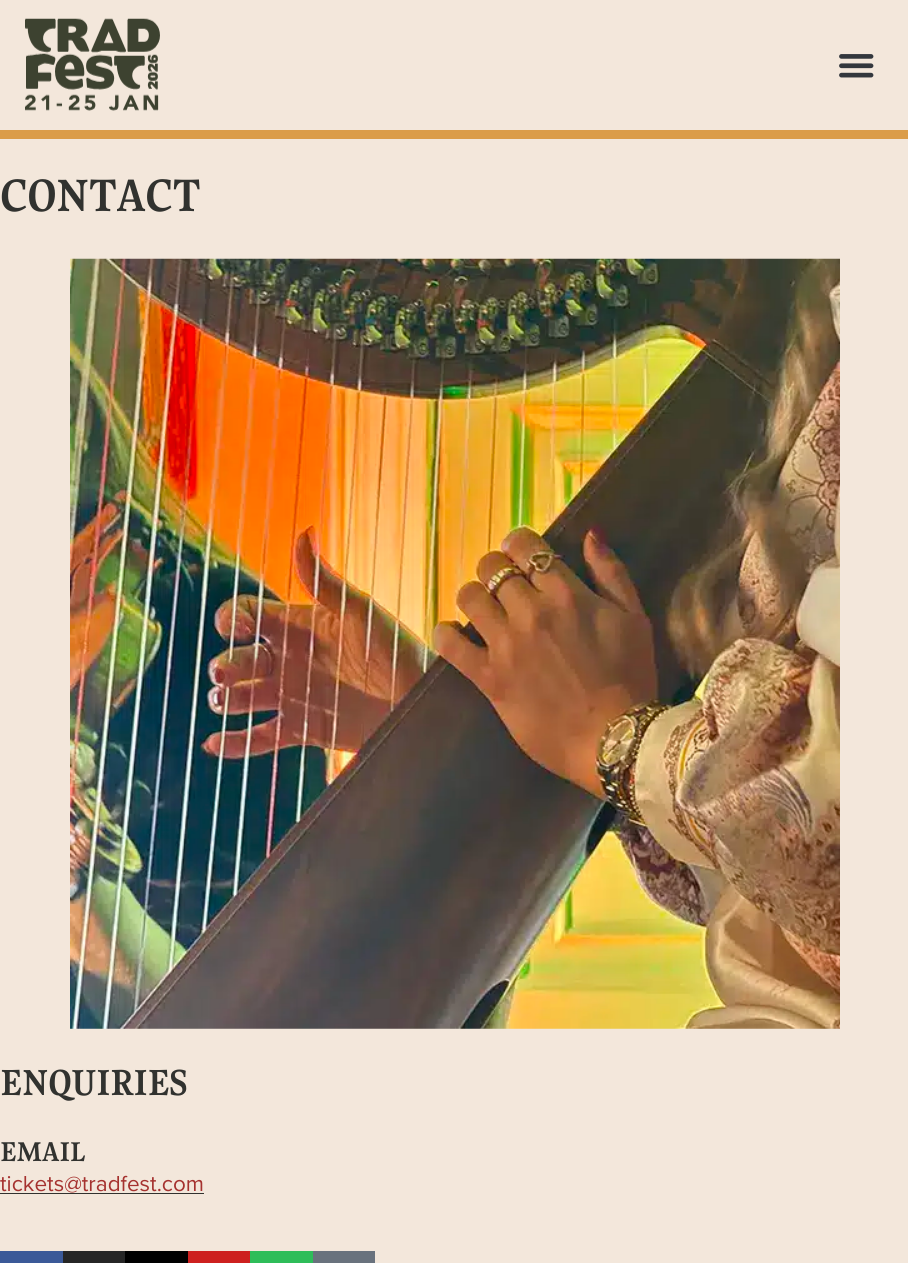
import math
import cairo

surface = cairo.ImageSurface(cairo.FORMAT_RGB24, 908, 1263)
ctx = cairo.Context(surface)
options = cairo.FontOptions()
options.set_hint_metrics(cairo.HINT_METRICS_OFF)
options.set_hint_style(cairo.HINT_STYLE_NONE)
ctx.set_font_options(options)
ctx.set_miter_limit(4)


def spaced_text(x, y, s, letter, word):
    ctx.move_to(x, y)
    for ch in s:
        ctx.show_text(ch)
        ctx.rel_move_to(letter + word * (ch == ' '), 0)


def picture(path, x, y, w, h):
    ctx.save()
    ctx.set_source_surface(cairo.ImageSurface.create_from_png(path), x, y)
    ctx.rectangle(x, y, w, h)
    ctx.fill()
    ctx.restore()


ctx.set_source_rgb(0.953, 0.906, 0.859)
ctx.paint()
ctx.set_source_rgb(0.859, 0.612, 0.282)
ctx.rectangle(0, 130, 908, 9)
ctx.fill()
picture("img1.png", 25, 18, 135, 93)
picture("img2.png", 839, 54, 35, 24)
ctx.select_font_face("Gupter", cairo.FONT_SLANT_NORMAL, cairo.FONT_WEIGHT_BOLD)
ctx.set_font_size(50)
ctx.set_source_rgb(0.192, 0.196, 0.184)
spaced_text(0, 211, "CONTACT", -1, 0)
picture("img3.png", 70, 258, 770, 771)
ctx.set_font_size(40)
spaced_text(0, 1095, "ENQUIRIES", -0.75, 0)
ctx.set_font_size(30)
spaced_text(0, 1161, "EMAIL", -0.5, 0)
ctx.select_font_face("Proxima Nova")
ctx.set_font_size(22.5)
ctx.set_source_rgb(0.647, 0.196, 0.184)
ctx.move_to(0, 1191)
ctx.show_text("tickets@tradfest.com")
ctx.set_source_rgb(0.192, 0.196, 0.184)
ctx.rectangle(0, 1193, 204, 1)
ctx.fill()
ctx.set_source_rgb(0.231, 0.349, 0.596)
ctx.rectangle(0, 1251, 63, 12)
ctx.fill()
ctx.set_source_rgb(0.149, 0.149, 0.149)
ctx.rectangle(63, 1251, 62, 12)
ctx.fill()
ctx.set_source_rgb(0, 0, 0)
ctx.rectangle(125, 1251, 63, 12)
ctx.fill()
ctx.set_source_rgb(0.804, 0.125, 0.122)
ctx.rectangle(188, 1251, 62, 12)
ctx.fill()
ctx.set_source_rgb(0.18, 0.741, 0.349)
ctx.rectangle(250, 1251, 63, 12)
ctx.fill()
ctx.set_source_rgb(0.412, 0.447, 0.49)
ctx.rectangle(313, 1251, 62, 12)
ctx.fill()
surface.write_to_png("page.png")
